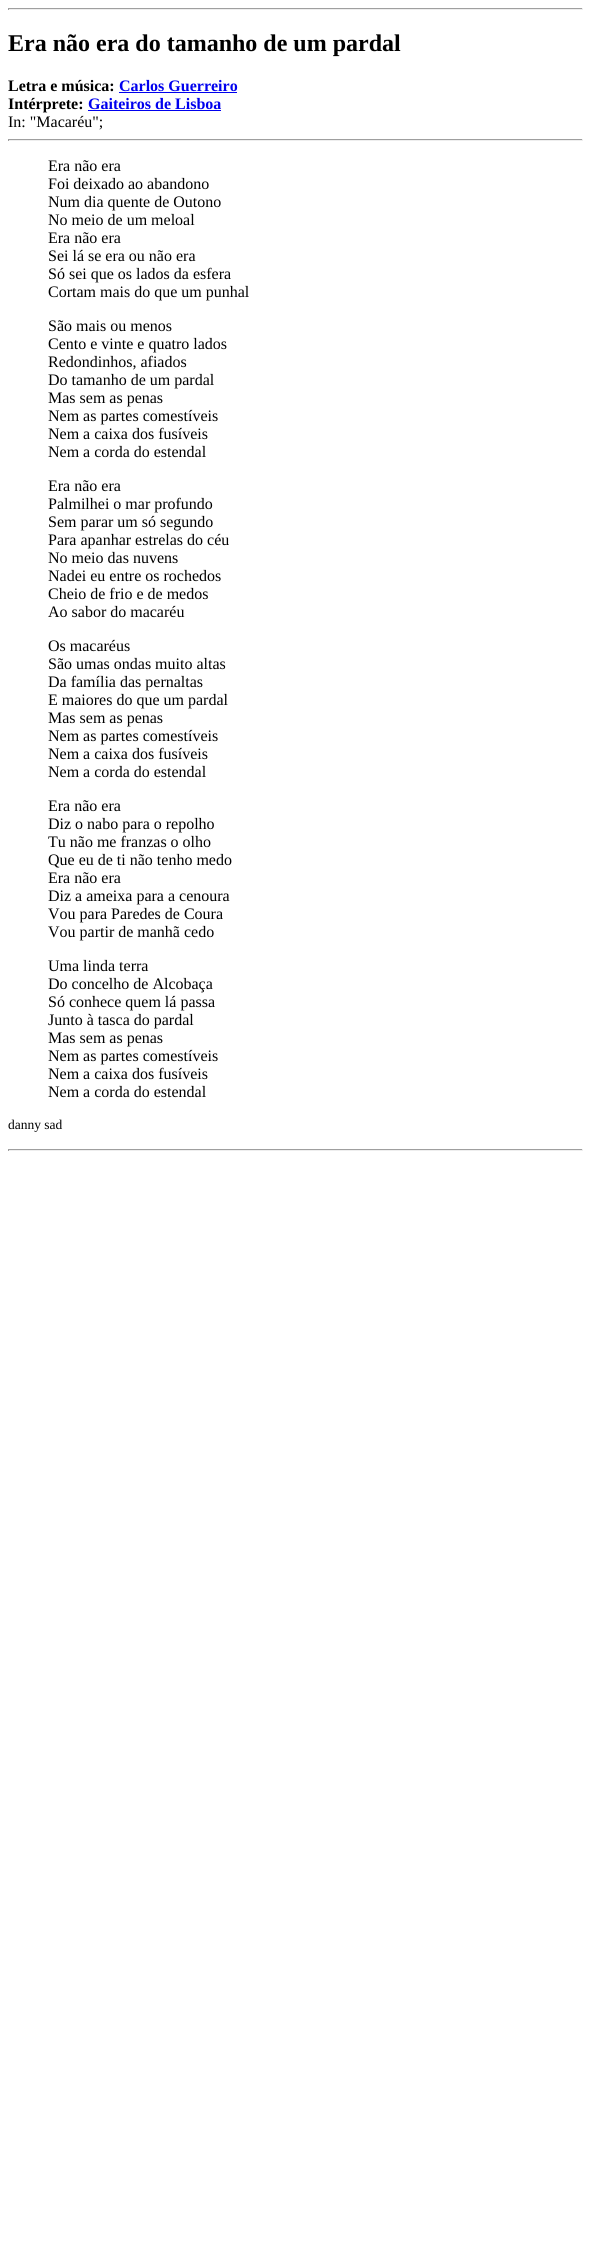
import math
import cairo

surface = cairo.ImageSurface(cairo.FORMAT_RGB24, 591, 2250)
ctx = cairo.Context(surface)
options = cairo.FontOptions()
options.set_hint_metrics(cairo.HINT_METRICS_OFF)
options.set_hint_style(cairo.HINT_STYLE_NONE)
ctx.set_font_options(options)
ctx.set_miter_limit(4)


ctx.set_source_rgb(1, 1, 1)
ctx.paint()
ctx.set_source_rgb(0.624, 0.624, 0.624)
ctx.rectangle(8, 8, 575, 1)
ctx.fill()
ctx.set_source_rgb(0.933, 0.933, 0.933)
ctx.rectangle(582, 8, 1, 2)
ctx.fill()
ctx.rectangle(8, 9, 575, 1)
ctx.fill()
ctx.set_source_rgb(0.624, 0.624, 0.624)
ctx.rectangle(8, 8, 1, 2)
ctx.fill()
ctx.select_font_face("Liberation Serif", cairo.FONT_SLANT_NORMAL, cairo.FONT_WEIGHT_BOLD)
ctx.set_font_size(24)
ctx.set_source_rgb(0, 0, 0)
ctx.move_to(8, 51)
ctx.show_text("Era não era do tamanho de um pardal")
ctx.set_font_size(16)
ctx.move_to(8, 91)
ctx.show_text("Letra e música:")
ctx.set_source_rgb(0, 0, 0.933)
ctx.move_to(119, 91)
ctx.show_text("Carlos Guerreiro")
ctx.rectangle(119, 92, 118, 1)
ctx.fill()
ctx.set_source_rgb(0, 0, 0)
ctx.move_to(8, 109)
ctx.show_text("Intérprete:")
ctx.set_source_rgb(0, 0, 0.933)
ctx.move_to(88, 109)
ctx.show_text("Gaiteiros de Lisboa")
ctx.rectangle(88, 110, 133, 1)
ctx.fill()
ctx.select_font_face("Liberation Serif")
ctx.set_source_rgb(0, 0, 0)
ctx.move_to(8, 127)
ctx.show_text("In: \"Macaréu\";")
ctx.set_source_rgb(0.624, 0.624, 0.624)
ctx.rectangle(8, 139, 575, 1)
ctx.fill()
ctx.set_source_rgb(0.933, 0.933, 0.933)
ctx.rectangle(582, 139, 1, 2)
ctx.fill()
ctx.rectangle(8, 140, 575, 1)
ctx.fill()
ctx.set_source_rgb(0.624, 0.624, 0.624)
ctx.rectangle(8, 139, 1, 2)
ctx.fill()
ctx.set_source_rgb(0, 0, 0)
ctx.move_to(48, 171)
ctx.show_text("Era não era")
ctx.move_to(48, 189)
ctx.show_text("Foi deixado ao abandono")
ctx.move_to(48, 207)
ctx.show_text("Num dia quente de Outono")
ctx.move_to(48, 225)
ctx.show_text("No meio de um meloal")
ctx.move_to(48, 243)
ctx.show_text("Era não era")
ctx.move_to(48, 261)
ctx.show_text("Sei lá se era ou não era")
ctx.move_to(48, 279)
ctx.show_text("Só sei que os lados da esfera")
ctx.move_to(48, 297)
ctx.show_text("Cortam mais do que um punhal")
ctx.move_to(48, 331)
ctx.show_text("São mais ou menos")
ctx.move_to(48, 349)
ctx.show_text("Cento e vinte e quatro lados")
ctx.move_to(48, 367)
ctx.show_text("Redondinhos, afiados")
ctx.move_to(48, 385)
ctx.show_text("Do tamanho de um pardal")
ctx.move_to(48, 403)
ctx.show_text("Mas sem as penas")
ctx.move_to(48, 421)
ctx.show_text("Nem as partes comestíveis")
ctx.move_to(48, 439)
ctx.show_text("Nem a caixa dos fusíveis")
ctx.move_to(48, 457)
ctx.show_text("Nem a corda do estendal")
ctx.move_to(48, 491)
ctx.show_text("Era não era")
ctx.move_to(48, 509)
ctx.show_text("Palmilhei o mar profundo")
ctx.move_to(48, 527)
ctx.show_text("Sem parar um só segundo")
ctx.move_to(48, 545)
ctx.show_text("Para apanhar estrelas do céu")
ctx.move_to(48, 563)
ctx.show_text("No meio das nuvens")
ctx.move_to(48, 581)
ctx.show_text("Nadei eu entre os rochedos")
ctx.move_to(48, 599)
ctx.show_text("Cheio de frio e de medos")
ctx.move_to(48, 617)
ctx.show_text("Ao sabor do macaréu")
ctx.move_to(48, 651)
ctx.show_text("Os macaréus")
ctx.move_to(48, 669)
ctx.show_text("São umas ondas muito altas")
ctx.move_to(48, 687)
ctx.show_text("Da família das pernaltas")
ctx.move_to(48, 705)
ctx.show_text("E maiores do que um pardal")
ctx.move_to(48, 723)
ctx.show_text("Mas sem as penas")
ctx.move_to(48, 741)
ctx.show_text("Nem as partes comestíveis")
ctx.move_to(48, 759)
ctx.show_text("Nem a caixa dos fusíveis")
ctx.move_to(48, 777)
ctx.show_text("Nem a corda do estendal")
ctx.move_to(48, 811)
ctx.show_text("Era não era")
ctx.move_to(48, 829)
ctx.show_text("Diz o nabo para o repolho")
ctx.move_to(48, 847)
ctx.show_text("Tu não me franzas o olho")
ctx.move_to(48, 865)
ctx.show_text("Que eu de ti não tenho medo")
ctx.move_to(48, 883)
ctx.show_text("Era não era")
ctx.move_to(48, 901)
ctx.show_text("Diz a ameixa para a cenoura")
ctx.move_to(48, 919)
ctx.show_text("Vou para Paredes de Coura")
ctx.move_to(48, 937)
ctx.show_text("Vou partir de manhã cedo")
ctx.move_to(48, 971)
ctx.show_text("Uma linda terra")
ctx.move_to(48, 989)
ctx.show_text("Do concelho de Alcobaça")
ctx.move_to(48, 1007)
ctx.show_text("Só conhece quem lá passa")
ctx.move_to(48, 1025)
ctx.show_text("Junto à tasca do pardal")
ctx.move_to(48, 1043)
ctx.show_text("Mas sem as penas")
ctx.move_to(48, 1061)
ctx.show_text("Nem as partes comestíveis")
ctx.move_to(48, 1079)
ctx.show_text("Nem a caixa dos fusíveis")
ctx.move_to(48, 1097)
ctx.show_text("Nem a corda do estendal")
ctx.set_font_size(13.5)
ctx.move_to(8, 1129)
ctx.show_text("danny sad")
ctx.set_source_rgb(0.624, 0.624, 0.624)
ctx.rectangle(8, 1149, 575, 1)
ctx.fill()
ctx.set_source_rgb(0.933, 0.933, 0.933)
ctx.rectangle(582, 1149, 1, 2)
ctx.fill()
ctx.rectangle(8, 1150, 575, 1)
ctx.fill()
ctx.set_source_rgb(0.624, 0.624, 0.624)
ctx.rectangle(8, 1149, 1, 2)
ctx.fill()
surface.write_to_png("page.png")
